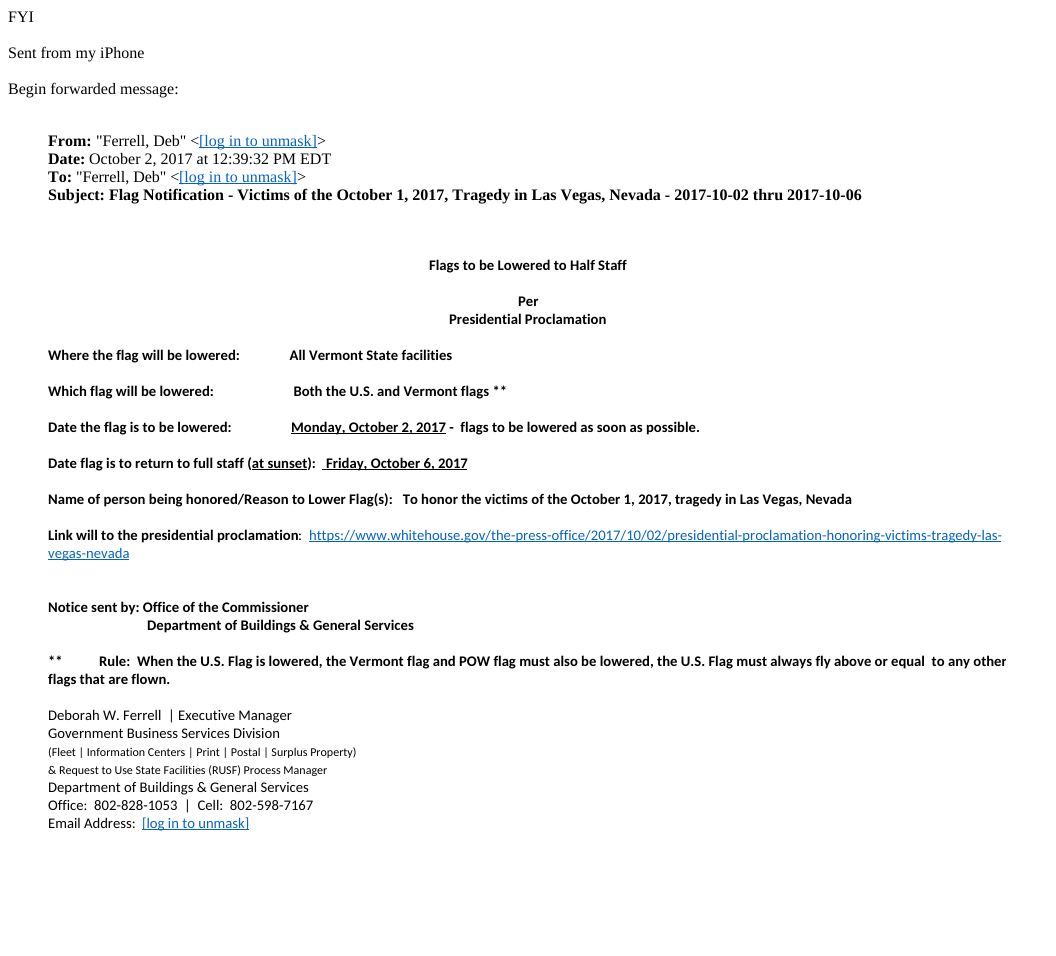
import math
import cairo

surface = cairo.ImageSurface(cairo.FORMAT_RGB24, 1056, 956)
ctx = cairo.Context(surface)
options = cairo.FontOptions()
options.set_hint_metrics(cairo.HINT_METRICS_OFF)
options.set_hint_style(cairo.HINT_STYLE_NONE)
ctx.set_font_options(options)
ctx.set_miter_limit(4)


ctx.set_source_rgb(1, 1, 1)
ctx.paint()
ctx.select_font_face("Liberation Serif")
ctx.set_font_size(16)
ctx.set_source_rgb(0, 0, 0)
ctx.move_to(8, 22)
ctx.show_text("FYI")
ctx.move_to(8, 58)
ctx.show_text("Sent from my iPhone")
ctx.move_to(8, 94)
ctx.show_text("Begin forwarded message:")
ctx.select_font_face("Liberation Serif", cairo.FONT_SLANT_NORMAL, cairo.FONT_WEIGHT_BOLD)
ctx.move_to(48, 146)
ctx.show_text("From:")
ctx.select_font_face("Liberation Serif")
ctx.move_to(96, 146)
ctx.show_text("\"Ferrell, Deb\" <")
ctx.set_source_rgb(0.02, 0.388, 0.757)
ctx.rectangle(199, 147, 118, 1)
ctx.fill()
ctx.move_to(199, 146)
ctx.show_text("[log in to unmask]")
ctx.set_source_rgb(0, 0, 0)
ctx.move_to(317, 146)
ctx.show_text(">")
ctx.select_font_face("Liberation Serif", cairo.FONT_SLANT_NORMAL, cairo.FONT_WEIGHT_BOLD)
ctx.move_to(48, 164)
ctx.show_text("Date:")
ctx.select_font_face("Liberation Serif")
ctx.move_to(89, 164)
ctx.show_text("October 2, 2017 at 12:39:32 PM EDT")
ctx.select_font_face("Liberation Serif", cairo.FONT_SLANT_NORMAL, cairo.FONT_WEIGHT_BOLD)
ctx.move_to(48, 182)
ctx.show_text("To:")
ctx.select_font_face("Liberation Serif")
ctx.move_to(76, 182)
ctx.show_text("\"Ferrell, Deb\" <")
ctx.set_source_rgb(0.02, 0.388, 0.757)
ctx.rectangle(179, 183, 118, 1)
ctx.fill()
ctx.move_to(179, 182)
ctx.show_text("[log in to unmask]")
ctx.set_source_rgb(0, 0, 0)
ctx.move_to(297, 182)
ctx.show_text(">")
ctx.select_font_face("Liberation Serif", cairo.FONT_SLANT_NORMAL, cairo.FONT_WEIGHT_BOLD)
ctx.move_to(48, 200)
ctx.show_text("Subject: Flag Notification - Victims of the October 1, 2017, Tragedy in Las Vegas, Nevada - 2017-10-02 thru 2017-10-06")
ctx.select_font_face("Carlito", cairo.FONT_SLANT_NORMAL, cairo.FONT_WEIGHT_BOLD)
ctx.set_font_size(14.67)
ctx.move_to(429, 270)
ctx.show_text("Flags to be Lowered to Half Staff")
ctx.move_to(518, 306)
ctx.show_text("Per")
ctx.move_to(449, 324)
ctx.show_text("Presidential Proclamation")
ctx.move_to(48, 360)
ctx.show_text("Where the flag will be lowered:               All Vermont State facilities")
ctx.move_to(48, 396)
ctx.show_text("Which flag will be lowered:                        Both the U.S. and Vermont flags **")
ctx.move_to(48, 432)
ctx.show_text("Date the flag is to be lowered:")
ctx.rectangle(291, 433, 155, 1)
ctx.fill()
ctx.move_to(291, 432)
ctx.show_text("Monday, October 2, 2017 -  flags to be lowered as soon as possible.")
ctx.move_to(48, 468)
ctx.show_text("Date flag is to return to full staff (at sunset):")
ctx.rectangle(252, 469, 55, 1)
ctx.fill()
ctx.rectangle(322, 469, 145, 1)
ctx.fill()
ctx.move_to(326, 468)
ctx.show_text("Friday, October 6, 2017")
ctx.move_to(48, 504)
ctx.show_text("Name of person being honored/Reason to Lower Flag(s):   To honor the victims of the October 1, 2017, tragedy in Las Vegas, Nevada")
ctx.move_to(48, 540)
ctx.show_text("Link will to the presidential proclamation")
ctx.select_font_face("Carlito")
ctx.move_to(298, 540)
ctx.show_text(":")
ctx.set_source_rgb(0.02, 0.388, 0.757)
ctx.rectangle(309, 541, 692, 1)
ctx.fill()
ctx.move_to(309, 540)
ctx.show_text("https://www.whitehouse.gov/the-press-office/2017/10/02/presidential-proclamation-honoring-victims-tragedy-las-")
ctx.rectangle(48, 559, 81, 1)
ctx.fill()
ctx.move_to(48, 558)
ctx.show_text("vegas-nevada")
ctx.select_font_face("Carlito", cairo.FONT_SLANT_NORMAL, cairo.FONT_WEIGHT_BOLD)
ctx.set_source_rgb(0, 0, 0)
ctx.move_to(48, 612)
ctx.show_text("Notice sent by: Office of the Commissioner")
ctx.move_to(147, 630)
ctx.show_text("Department of Buildings & General Services")
ctx.move_to(48, 666)
ctx.show_text("**           Rule:  When the U.S. Flag is lowered, the Vermont flag and POW flag must also be lowered, the U.S. Flag must always fly above or equal  to any other")
ctx.move_to(48, 684)
ctx.show_text("flags that are flown.")
ctx.select_font_face("Carlito")
ctx.move_to(48, 720)
ctx.show_text("Deborah W. Ferrell  | Executive Manager")
ctx.move_to(48, 738)
ctx.show_text("Government Business Services Division")
ctx.set_font_size(12)
ctx.move_to(48, 756)
ctx.show_text("(Fleet | Information Centers | Print | Postal | Surplus Property)")
ctx.move_to(48, 774)
ctx.show_text("& Request to Use State Facilities (RUSF) Process Manager")
ctx.set_font_size(14.67)
ctx.move_to(48, 792)
ctx.show_text("Department of Buildings & General Services")
ctx.move_to(48, 810)
ctx.show_text("Office:  802-828-1053  |  Cell:  802-598-7167")
ctx.move_to(48, 828)
ctx.show_text("Email Address:")
ctx.set_source_rgb(0.02, 0.388, 0.757)
ctx.rectangle(142, 829, 107, 1)
ctx.fill()
ctx.move_to(142, 828)
ctx.show_text("[log in to unmask]")
surface.write_to_png("page.png")
